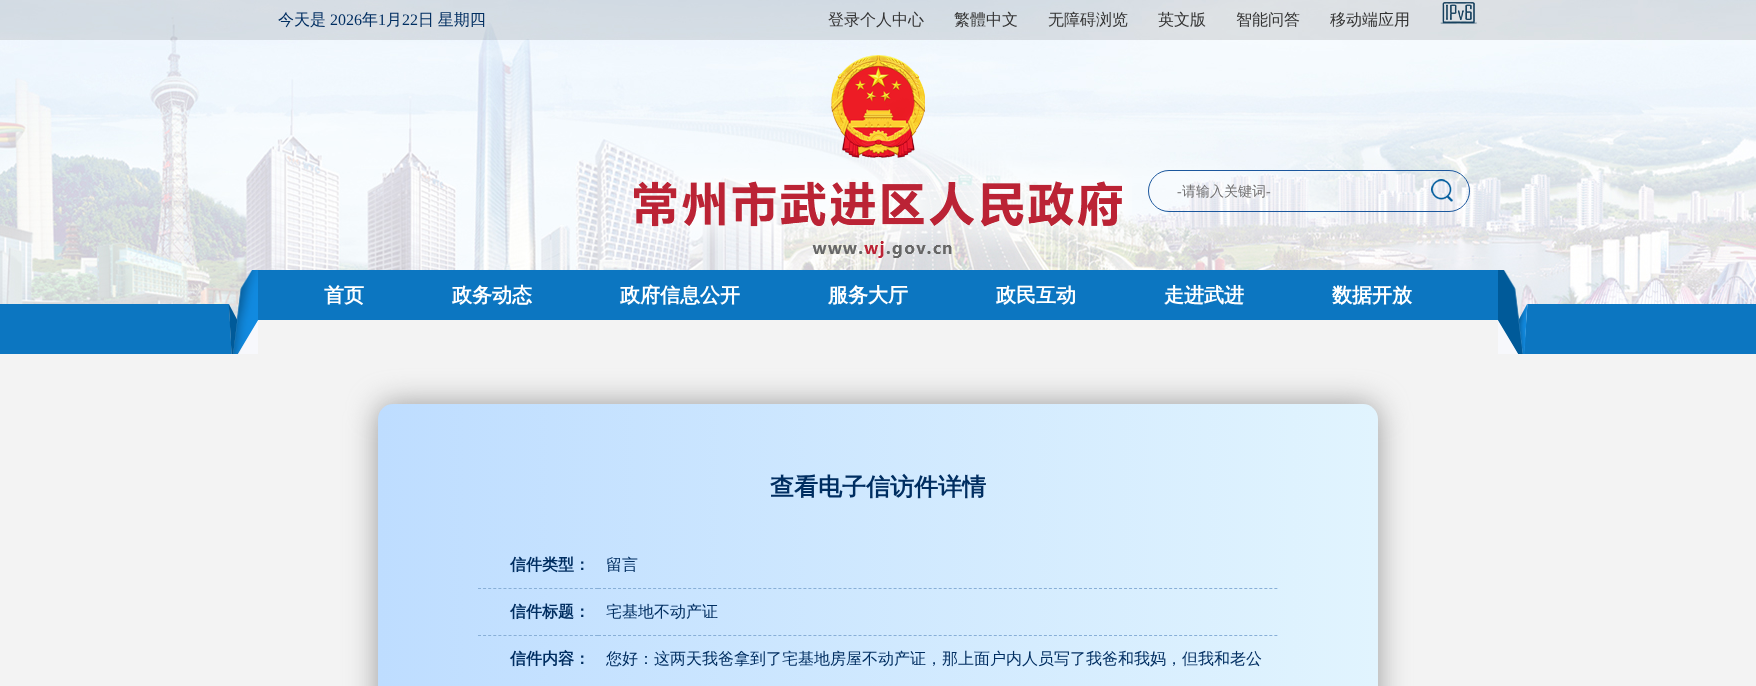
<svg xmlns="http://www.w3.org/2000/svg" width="1756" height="686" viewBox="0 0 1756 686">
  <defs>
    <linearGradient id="g1" gradientUnits="userSpaceOnUse" x1="378" y1="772" x2="1378" y2="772"><stop offset="0" stop-color="#beddff"/><stop offset="1" stop-color="#e1f4fe"/></linearGradient>
  </defs>
  <rect width="100%" height="100%" fill="#f3f3f3"/>
  <image x="0" y="0" width="1756" height="320" href="img/1.png"/>
  <path d="M0 0h1756v40H0z" fill="#0000001a"/>
  <image x="1440" y="2" width="37" height="22" href="img/2.png"/>
  <image x="616" y="55" width="516" height="203" href="img/3.png"/>
  <rect x="1148.5" y="170.5" width="321" height="41" rx="20.5" fill="#ffffff1a" stroke="#1b579d"/>
  <image x="1431" y="179" width="22" height="23" href="img/4.png"/>
  <image x="0" y="270" width="1756" height="84" href="img/5.png"/>
  <rect x="378" y="404" width="1000" height="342" rx="15" fill="#999" filter="blur(15px)"/>
  <rect x="378" y="404" width="1000" height="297" rx="15" fill="url(#g1)"/>
  <path d="M478 588.5H598" fill="none" stroke="#88afd7" stroke-dasharray="3 2.09"/>
  <path d="M598 588.5H1278" fill="none" stroke="#88afd7" stroke-dasharray="3 2.01"/>
  <path d="M478 635.5H598" fill="none" stroke="#88afd7" stroke-dasharray="3 2.09"/>
  <path d="M598 635.5H1278" fill="none" stroke="#88afd7" stroke-dasharray="3 2.01"/>
  <text x="278" y="25" font-family="WenQuanYi Zen Hei" font-size="16" font-weight="500" fill="#002e61">今天是</text>
  <text x="330" y="25" font-family="Liberation Serif" font-size="16" fill="#002e61">2026</text>
  <text x="362" y="25" font-family="WenQuanYi Zen Hei" font-size="16" font-weight="500" fill="#002e61">年</text>
  <text x="378" y="25" font-family="Liberation Serif" font-size="16" fill="#002e61">1</text>
  <text x="386" y="25" font-family="WenQuanYi Zen Hei" font-size="16" font-weight="500" fill="#002e61">月</text>
  <text x="402" y="25" font-family="Liberation Serif" font-size="16" fill="#002e61">22</text>
  <text x="418" y="25" word-spacing="-1" font-family="WenQuanYi Zen Hei" font-size="16" font-weight="500" fill="#002e61">日 星期四</text>
  <g font-family="WenQuanYi Zen Hei" font-size="16" font-weight="500" fill="#333">
    <text x="828" y="25">登录个人中心</text>
    <text x="954" y="25">繁體中文</text>
    <text x="1048" y="25">无障碍浏览</text>
    <text x="1158" y="25">英文版</text>
    <text x="1236" y="25">智能问答</text>
    <text x="1330" y="25">移动端应用</text>
  </g>
  <text x="1177" y="196" font-family="Liberation Serif" font-size="14" fill="#717070">-</text>
  <text x="1182" y="196" font-family="WenQuanYi Zen Hei" font-size="14" font-weight="500" fill="#717070">请输入关键词</text>
  <text x="1266" y="196" font-family="Liberation Serif" font-size="14" fill="#717070">-</text>
  <g font-family="WenQuanYi Zen Hei" font-size="20" font-weight="bold" fill="#fff">
    <text x="324" y="302">首页</text>
    <text x="452" y="302">政务动态</text>
    <text x="620" y="302">政府信息公开</text>
    <text x="828" y="302">服务大厅</text>
    <text x="996" y="302">政民互动</text>
    <text x="1164" y="302">走进武进</text>
    <text x="1332" y="302">数据开放</text>
  </g>
  <text x="770" y="495" font-family="WenQuanYi Zen Hei" font-size="24" font-weight="bold" fill="#002e61">查看电子信访件详情</text>
  <text x="510" y="570" font-family="WenQuanYi Zen Hei" font-size="16" font-weight="bold" fill="#002e61">信件类型：</text>
  <text x="606" y="570" font-family="WenQuanYi Zen Hei" font-size="16" font-weight="500" fill="#002e61">留言</text>
  <text x="510" y="617" font-family="WenQuanYi Zen Hei" font-size="16" font-weight="bold" fill="#002e61">信件标题：</text>
  <text x="606" y="617" font-family="WenQuanYi Zen Hei" font-size="16" font-weight="500" fill="#002e61">宅基地不动产证</text>
  <text x="510" y="664" font-family="WenQuanYi Zen Hei" font-size="16" font-weight="bold" fill="#002e61">信件内容：</text>
  <text x="606" y="664" font-family="WenQuanYi Zen Hei" font-size="16" font-weight="500" fill="#002e61">您好：这两天我爸拿到了宅基地房屋不动产证，那上面户内人员写了我爸和我妈，但我和老公</text>
</svg>
